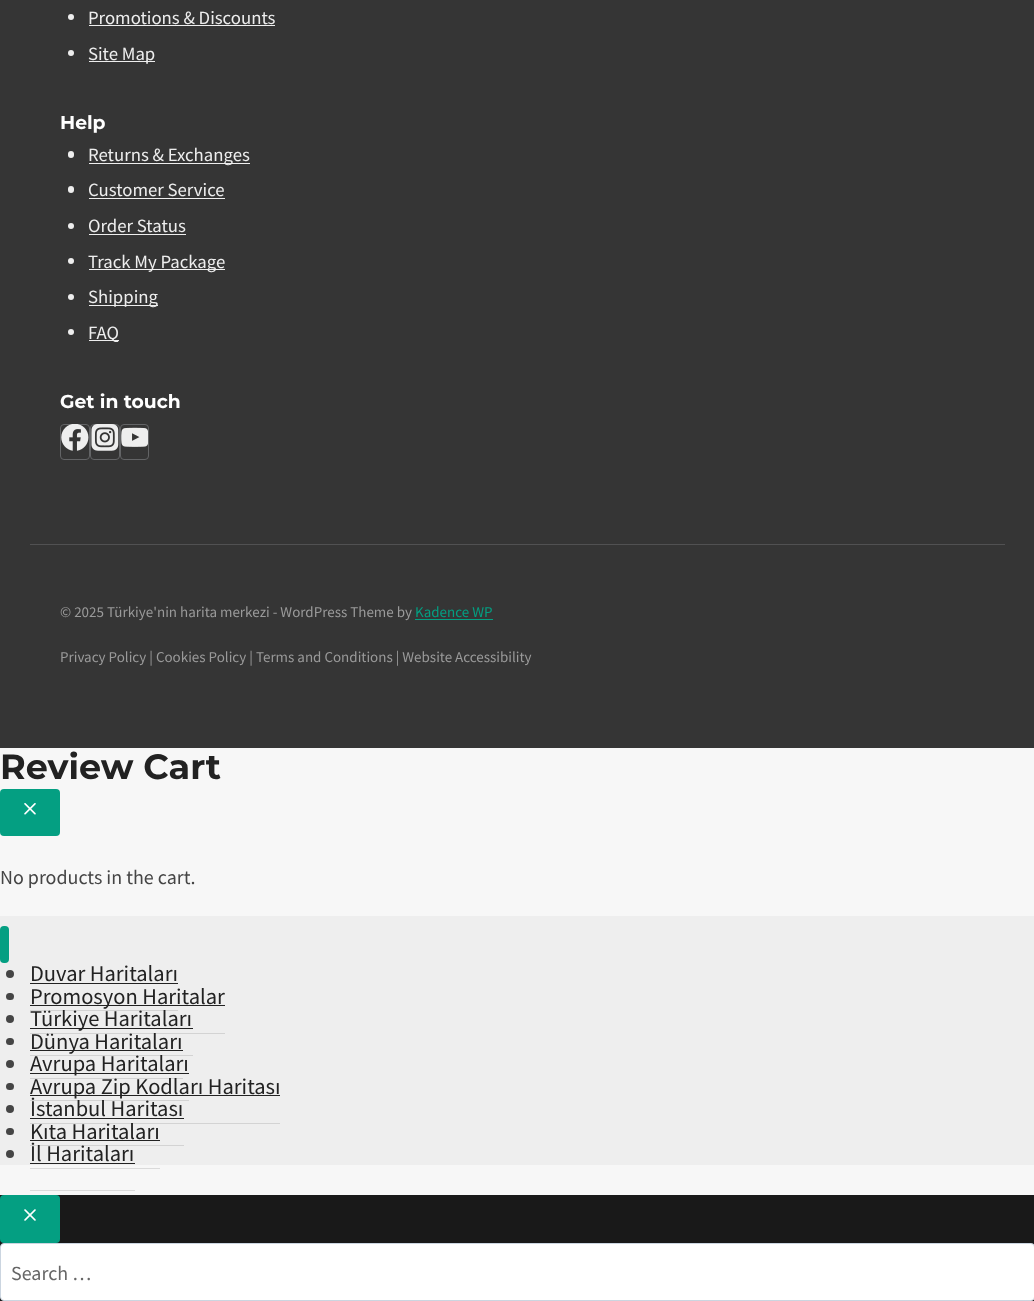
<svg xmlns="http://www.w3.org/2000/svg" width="1034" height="1301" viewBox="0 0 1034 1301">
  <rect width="100%" height="100%" fill="#f7f7f7"/>
  <path d="M0 0h1034v748H0z" fill="#353535"/>
  <circle cx="71" cy="17" r="3" fill="#eee"/>
  <path d="M89 25h186v1H89z" fill="#eee"/>
  <circle cx="71" cy="53" r="3" fill="#eee"/>
  <path d="M89 61h66v1H89z" fill="#eee"/>
  <rect x="68" y="151" width="6" height="7" rx="3" fill="#eee"/>
  <path d="M89 163h161v1H89z" fill="#eee"/>
  <rect x="68" y="186" width="6" height="7" rx="3" fill="#eee"/>
  <path d="M89 198h136v1H89z" fill="#eee"/>
  <circle cx="71" cy="226" r="3" fill="#eee"/>
  <path d="M89 234h97v1H89z" fill="#eee"/>
  <circle cx="71" cy="261" r="3" fill="#eee"/>
  <path d="M89 269h136v1H89z" fill="#eee"/>
  <circle cx="71" cy="297" r="3" fill="#eee"/>
  <path d="M89 305h69v1H89z" fill="#eee"/>
  <circle cx="71" cy="332" r="3" fill="#eee"/>
  <path d="M89 340h30v1H89z" fill="#eee"/>
  <rect x="60.5" y="424.5" width="29" height="35" rx="3.5" fill="none" stroke="#636466"/>
  <image x="61" y="424" width="28" height="27" href="img/1.png"/>
  <rect x="90.5" y="424.5" width="29" height="35" rx="3.5" fill="none" stroke="#636466"/>
  <image x="91" y="424" width="28" height="27" href="img/2.png"/>
  <rect x="120.5" y="424.5" width="28" height="35" rx="3.5" fill="none" stroke="#636466"/>
  <image x="121" y="427" width="27" height="20" href="img/3.png"/>
  <path d="M30 544h975v1H30z" fill="#515152"/>
  <path d="M415 619h78v1H415z" fill="#049f82"/>
  <rect y="789" width="60" height="47" rx="4" fill="#049f82"/>
  <image x="24" y="803" width="12" height="12" href="img/4.png"/>
  <path d="M0 916h1034v249H0z" fill="#eee"/>
  <rect y="926" width="9" height="37" rx="4" fill="#049f82"/>
  <circle cx="10" cy="974" r="4" fill="#454545"/>
  <path d="M30 1010h148v1H30z" fill="#d3d3d3"/>
  <path d="M30 983h148v1H30z" fill="#222"/>
  <rect x="6" y="993" width="8" height="7" rx="3.5" fill="#454545"/>
  <path d="M30 1033h195v1H30z" fill="#d3d3d3"/>
  <path d="M30 1005h195v1H30z" fill="#222"/>
  <circle cx="10" cy="1019" r="4" fill="#454545"/>
  <path d="M30 1055h163v1H30z" fill="#d3d3d3"/>
  <path d="M30 1028h163v1H30z" fill="#222"/>
  <rect x="6" y="1038" width="8" height="7" rx="3.5" fill="#454545"/>
  <path d="M30 1078h153v1H30z" fill="#d3d3d3"/>
  <path d="M30 1050h153v1H30z" fill="#222"/>
  <circle cx="10" cy="1064" r="4" fill="#454545"/>
  <path d="M30 1100h159v1H30z" fill="#d3d3d3"/>
  <path d="M30 1073h159v1H30z" fill="#222"/>
  <rect x="6" y="1083" width="8" height="7" rx="3.5" fill="#454545"/>
  <path d="M30 1123h250v1H30z" fill="#d3d3d3"/>
  <path d="M30 1095h250v1H30z" fill="#222"/>
  <circle cx="10" cy="1109" r="4" fill="#454545"/>
  <path d="M30 1145h154v1H30z" fill="#d3d3d3"/>
  <path d="M30 1118h154v1H30z" fill="#222"/>
  <rect x="6" y="1128" width="8" height="7" rx="3.5" fill="#454545"/>
  <path d="M30 1168h130v1H30z" fill="#dadada"/>
  <path d="M30 1140h130v1H30z" fill="#222"/>
  <circle cx="10" cy="1154" r="4" fill="#454545"/>
  <path d="M30 1190h105v1H30z" fill="#dadada"/>
  <path d="M30 1163h105v1H30z" fill="#222"/>
  <path d="M0 1195h1034v106H0z" fill="#191919"/>
  <rect y="1195" width="60" height="48" rx="4" fill="#049f82"/>
  <image x="24" y="1209" width="12" height="12" href="img/5.png"/>
  <rect x="0.5" y="1243.5" width="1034" height="57" rx="3.5" fill="#fff" stroke="#cbd5e0"/>
  <g font-family="Source Sans Pro" font-size="18.75" fill="#eee">
    <text x="88" y="24">Promotions &amp; Discounts</text>
    <text x="88" y="60">Site Map</text>
  </g>
  <text x="60" y="129" font-family="Montserrat" font-size="18.75" font-weight="bold" fill="#fff">Help</text>
  <g font-family="Source Sans Pro" font-size="18.75" fill="#eee">
    <text x="88" y="161">Returns &amp; Exchanges</text>
    <text x="88" y="196">Customer Service</text>
    <text x="88" y="232">Order Status</text>
    <text x="88" y="268">Track My Package</text>
    <text x="88" y="303">Shipping</text>
    <text x="88" y="339">FAQ</text>
  </g>
  <text x="60" y="408" font-family="Montserrat" font-size="18.75" font-weight="bold" fill="#fff">Get in touch</text>
  <text x="60" y="617" font-family="Source Sans Pro" font-size="15" fill="#9a9a9a">© 2025 Türkiye'nin harita merkezi - WordPress Theme by</text>
  <text x="415" y="617" font-family="Source Sans Pro" font-size="15" fill="#049f82">Kadence WP</text>
  <text x="60" y="662" font-family="Source Sans Pro" font-size="15" fill="#9a9a9a">Privacy Policy | Cookies Policy | Terms and Conditions | Website Accessibility</text>
  <text x="0" y="779" font-family="Montserrat" font-size="35" font-weight="bold" fill="#222">Review Cart</text>
  <text x="0" y="884" font-family="Source Sans Pro" font-size="20" fill="#454545">No products in the cart.</text>
  <g font-family="Source Sans Pro" font-size="22.5" fill="#222">
    <text x="30" y="981">Duvar Haritaları</text>
    <text x="30" y="1004">Promosyon Haritalar</text>
    <text x="30" y="1026">Türkiye Haritaları</text>
    <text x="30" y="1049">Dünya Haritaları</text>
    <text x="30" y="1071">Avrupa Haritaları</text>
    <text x="30" y="1094">Avrupa Zip Kodları Haritası</text>
    <text x="30" y="1116">İstanbul Haritası</text>
    <text x="30" y="1139">Kıta Haritaları</text>
    <text x="30" y="1161">İl Haritaları</text>
  </g>
  <text x="11" y="1280" font-family="Source Sans Pro" font-size="20" fill="#676767">Search …</text>
</svg>
